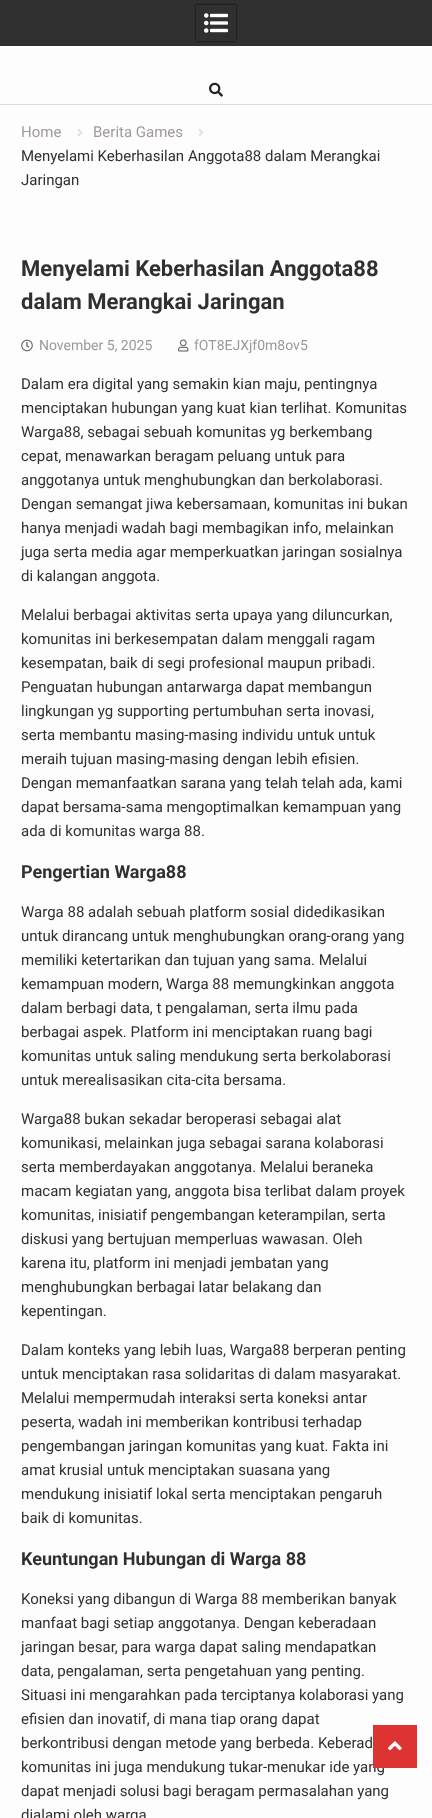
<svg xmlns="http://www.w3.org/2000/svg" width="432" height="1818" viewBox="0 0 432 1818">
  <defs>
    <clipPath id="clip1"><path d="M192 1H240V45H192ZM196 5H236V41H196Z" clip-rule="evenodd"/></clipPath>
  </defs>
  <rect width="100%" height="100%" fill="#fdfdfd"/>
  <path d="M0 0h432v46H0z" fill="#303030"/>
  <g clip-path="url(#clip1)">
    <path d="M196 5h40v36H196z" fill="#000" filter="blur(1px)"/>
  </g>
  <image x="204" y="13" width="24" height="20" href="img/1.png"/>
  <path d="M0 104h432v1H0z" fill="#ddd"/>
  <image x="209" y="82" width="14" height="15" href="img/2.png"/>
  <image x="77" y="128" width="6" height="9" href="img/3.png"/>
  <image x="198" y="128" width="6" height="9" href="img/3.png"/>
  <image x="21" y="339" width="12" height="13" href="img/4.png"/>
  <image x="178" y="339" width="11" height="13" href="img/5.png"/>
  <g font-family="Roboto" font-size="15" fill="#a29a9a">
    <text x="21" y="137">Home</text>
    <text x="93" y="137">Berita Games</text>
  </g>
  <g font-family="Roboto" font-size="15" fill="#303030">
    <text x="21" y="161">Menyelami Keberhasilan Anggota88 dalam Merangkai</text>
    <text x="21" y="185">Jaringan</text>
  </g>
  <g font-family="Roboto" font-size="22" font-weight="bold" fill="#303030">
    <text x="21" y="276">Menyelami Keberhasilan Anggota88</text>
    <text x="21" y="309">dalam Merangkai Jaringan</text>
  </g>
  <g font-family="Roboto" font-size="14" fill="#999">
    <text x="39" y="350">November 5, 2025</text>
    <text x="194" y="350">fOT8EJXjf0m8ov5</text>
  </g>
  <g font-family="Roboto" font-size="15" fill="#303030">
    <text x="21" y="389">Dalam era digital yang semakin kian maju, pentingnya</text>
    <text x="21" y="413">menciptakan hubungan yang kuat kian terlihat. Komunitas</text>
    <text x="21" y="437">Warga88, sebagai sebuah komunitas yg berkembang</text>
    <text x="21" y="461">cepat, menawarkan beragam peluang untuk para</text>
    <text x="21" y="485">anggotanya untuk menghubungkan dan berkolaborasi.</text>
    <text x="21" y="509">Dengan semangat jiwa kebersamaan, komunitas ini bukan</text>
    <text x="21" y="533">hanya menjadi wadah bagi membagikan info, melainkan</text>
    <text x="21" y="557">juga serta media agar memperkuatkan jaringan sosialnya</text>
    <text x="21" y="581">di kalangan anggota.</text>
    <text x="21" y="620">Melalui berbagai aktivitas serta upaya yang diluncurkan,</text>
    <text x="21" y="644">komunitas ini berkesempatan dalam menggali ragam</text>
    <text x="21" y="668">kesempatan, baik di segi profesional maupun pribadi.</text>
    <text x="21" y="692">Penguatan hubungan antarwarga dapat membangun</text>
    <text x="21" y="716">lingkungan yg supporting pertumbuhan serta inovasi,</text>
    <text x="21" y="740">serta membantu masing-masing individu untuk untuk</text>
    <text x="21" y="764">meraih tujuan masing-masing dengan lebih efisien.</text>
    <text x="21" y="788">Dengan memanfaatkan sarana yang telah telah ada, kami</text>
    <text x="21" y="812">dapat bersama-sama mengoptimalkan kemampuan yang</text>
    <text x="21" y="836">ada di komunitas warga 88.</text>
  </g>
  <text x="21" y="878" font-family="Roboto" font-size="18" font-weight="bold" fill="#303030">Pengertian Warga88</text>
  <g font-family="Roboto" font-size="15" fill="#303030">
    <text x="21" y="917">Warga 88 adalah sebuah platform sosial didedikasikan</text>
    <text x="21" y="941">untuk dirancang untuk menghubungkan orang-orang yang</text>
    <text x="21" y="965">memiliki ketertarikan dan tujuan yang sama. Melalui</text>
    <text x="21" y="989">kemampuan modern, Warga 88 memungkinkan anggota</text>
    <text x="21" y="1013">dalam berbagi data, t pengalaman, serta ilmu pada</text>
    <text x="21" y="1037">berbagai aspek. Platform ini menciptakan ruang bagi</text>
    <text x="21" y="1061">komunitas untuk saling mendukung serta berkolaborasi</text>
    <text x="21" y="1085">untuk merealisasikan cita-cita bersama.</text>
    <text x="21" y="1124">Warga88 bukan sekadar beroperasi sebagai alat</text>
    <text x="21" y="1148">komunikasi, melainkan juga sebagai sarana kolaborasi</text>
    <text x="21" y="1172">serta memberdayakan anggotanya. Melalui beraneka</text>
    <text x="21" y="1196">macam kegiatan yang, anggota bisa terlibat dalam proyek</text>
    <text x="21" y="1220">komunitas, inisiatif pengembangan keterampilan, serta</text>
    <text x="21" y="1244">diskusi yang bertujuan memperluas wawasan. Oleh</text>
    <text x="21" y="1268">karena itu, platform ini menjadi jembatan yang</text>
    <text x="21" y="1292">menghubungkan berbagai latar belakang dan</text>
    <text x="21" y="1316">kepentingan.</text>
    <text x="21" y="1355">Dalam konteks yang lebih luas, Warga88 berperan penting</text>
    <text x="21" y="1379">untuk menciptakan rasa solidaritas di dalam masyarakat.</text>
    <text x="21" y="1403">Melalui mempermudah interaksi serta koneksi antar</text>
    <text x="21" y="1427">peserta, wadah ini memberikan kontribusi terhadap</text>
    <text x="21" y="1451">pengembangan jaringan komunitas yang kuat. Fakta ini</text>
    <text x="21" y="1475">amat krusial untuk menciptakan suasana yang</text>
    <text x="21" y="1499">mendukung inisiatif lokal serta menciptakan pengaruh</text>
    <text x="21" y="1523">baik di komunitas.</text>
  </g>
  <text x="21" y="1565" font-family="Roboto" font-size="18" font-weight="bold" fill="#303030">Keuntungan Hubungan di Warga 88</text>
  <g font-family="Roboto" font-size="15" fill="#303030">
    <text x="21" y="1604">Koneksi yang dibangun di Warga 88 memberikan banyak</text>
    <text x="21" y="1628">manfaat bagi setiap anggotanya. Dengan keberadaan</text>
    <text x="21" y="1652">jaringan besar, para warga dapat saling mendapatkan</text>
    <text x="21" y="1676">data, pengalaman, serta pengetahuan yang penting.</text>
    <text x="21" y="1700">Situasi ini mengarahkan pada terciptanya kolaborasi yang</text>
    <text x="21" y="1724">efisien dan inovatif, di mana tiap orang dapat</text>
    <text x="21" y="1748">berkontribusi dengan metode yang berbeda. Keberad</text>
    <text x="21" y="1772">komunitas ini juga mendukung tukar-menukar ide yang</text>
    <text x="21" y="1796">dapat menjadi solusi bagi beragam permasalahan yang</text>
    <text x="21" y="1820">dialami oleh warga</text>
  </g>
  <path d="M373 1725h44v43H373z" fill="#d33"/>
  <image x="388" y="1741" width="14" height="10" href="img/6.png"/>
</svg>
